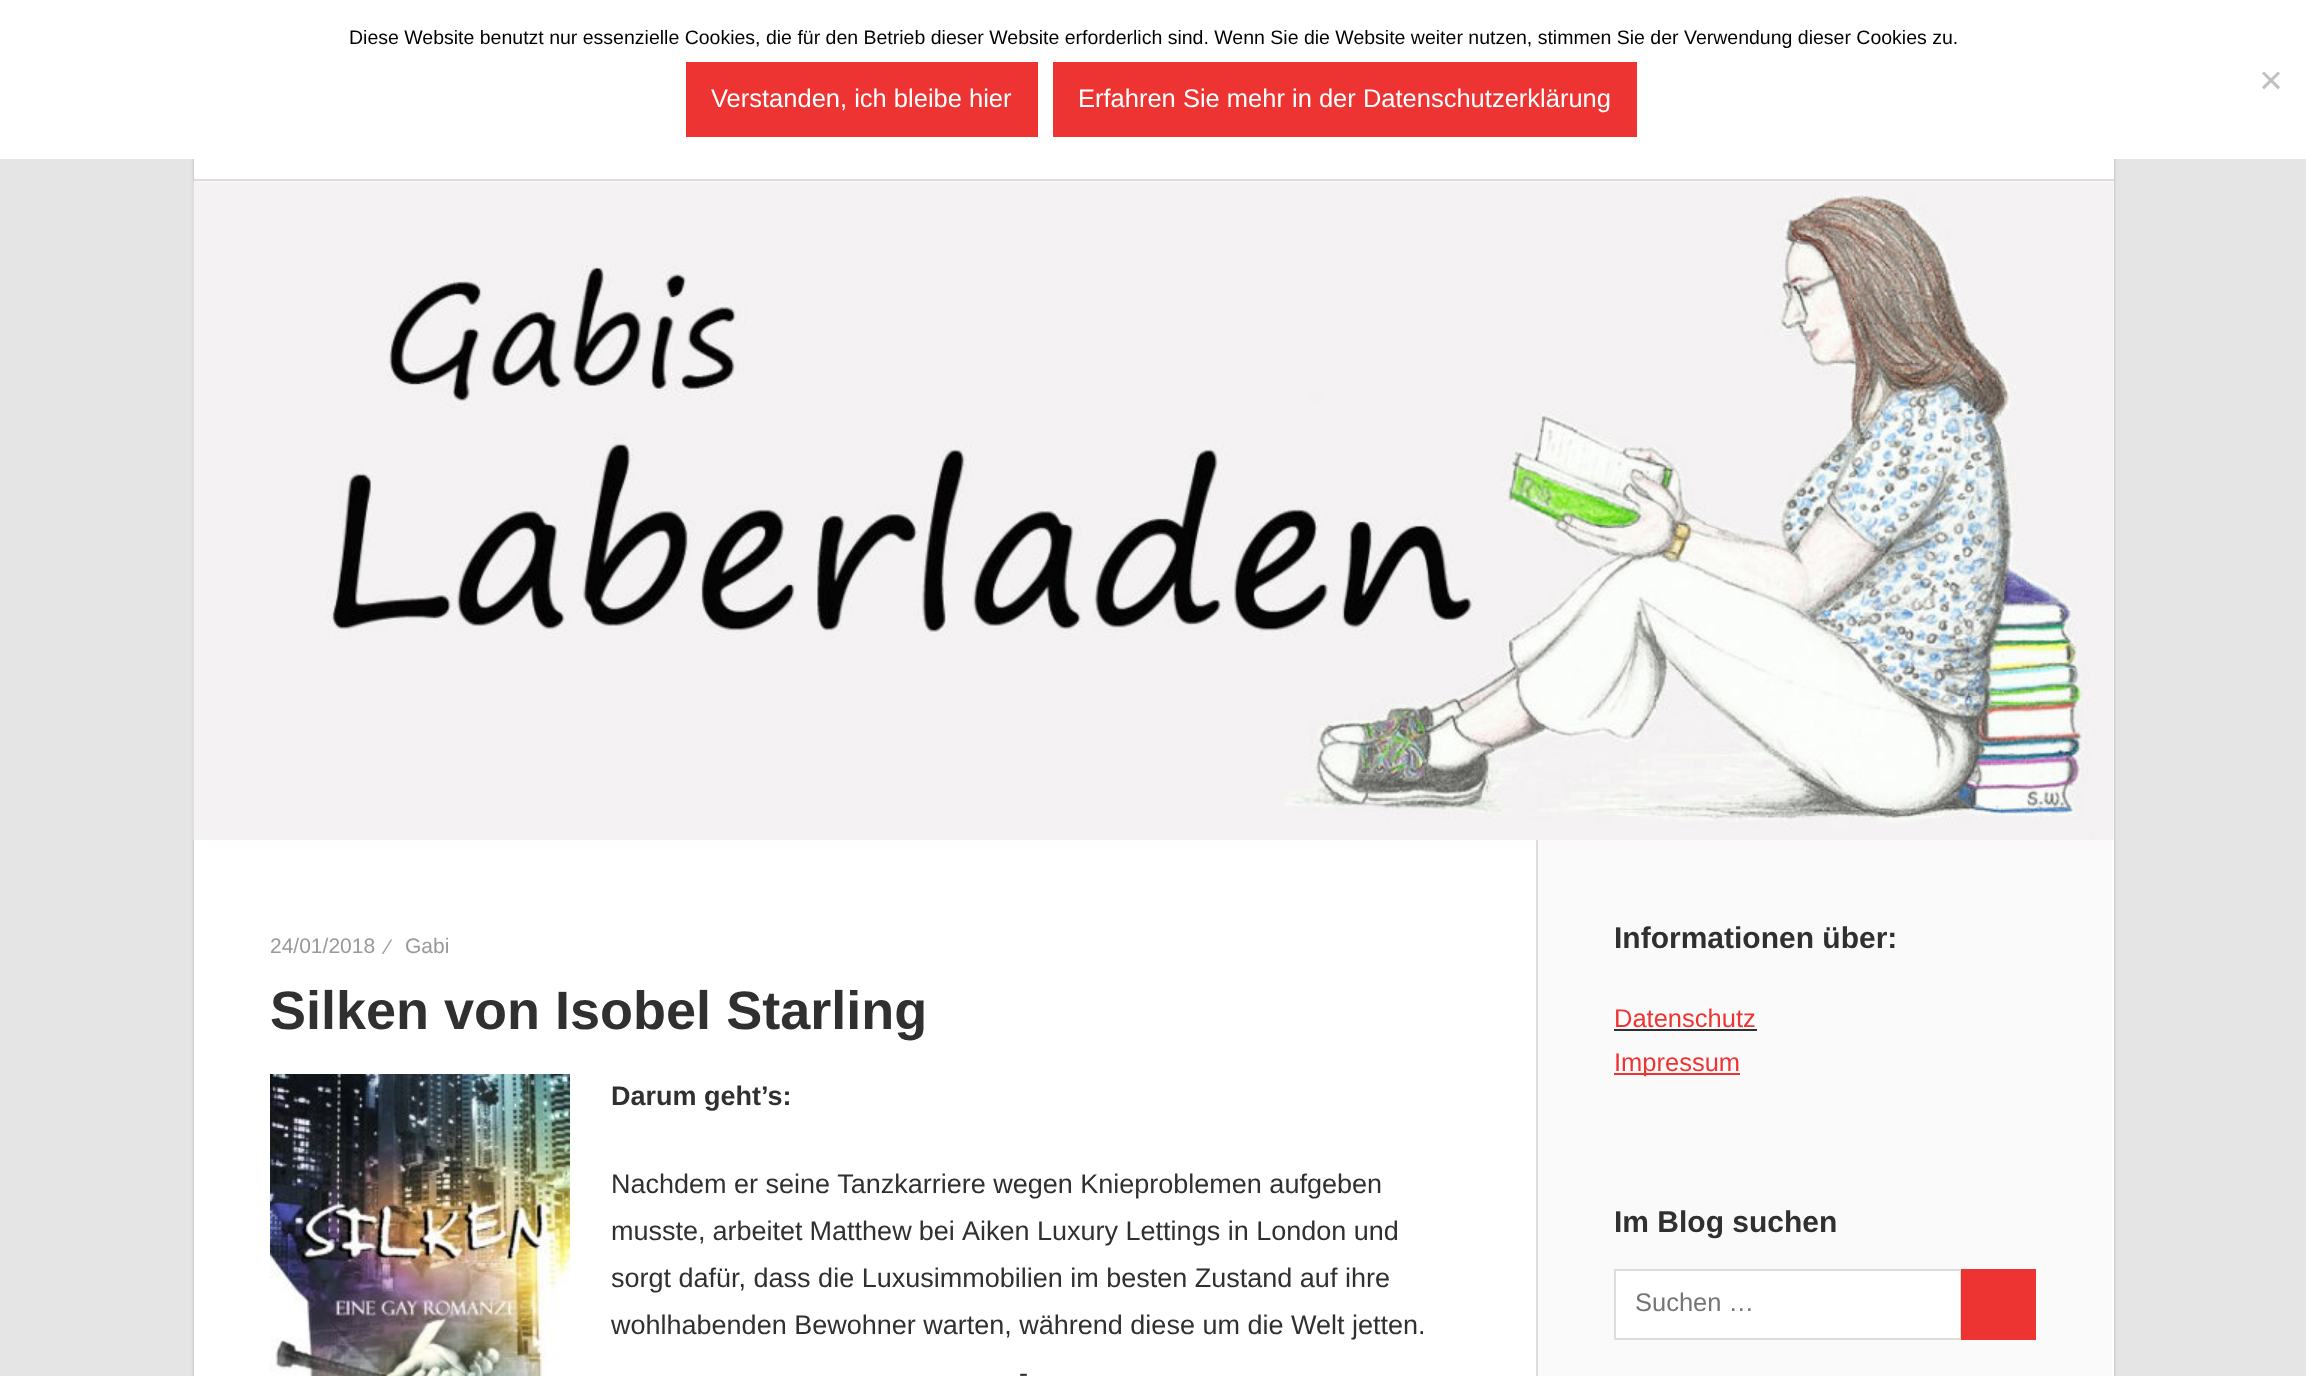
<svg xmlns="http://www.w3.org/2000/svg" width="2306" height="1376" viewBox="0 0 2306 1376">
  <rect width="100%" height="100%" fill="#e5e5e5"/>
  <path d="M194 51h1920v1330H194z" fill="#aaa" filter="blur(1.5px)"/>
  <path d="M0 0h2306v159H0z" fill="#fff"/>
  <path d="M2278 71.5L2280 73.5L2264 89.5L2262 87Z" fill="#c0c0c0"/>
  <path d="M2262 73.5L2264 71.5L2280 87L2278 89.5Z" fill="#c0c0c0"/>
  <path d="M686 62h352v75H686z" fill="#e33"/>
  <path d="M1053 62h584v75H1053z" fill="#e33"/>
  <path d="M194 159h1920v1217H194z" fill="#fff"/>
  <path d="M194 179h1920v2H194z" fill="#ddd"/>
  <image x="193" y="181" width="1921" height="659" href="img/1.png"/>
  <image x="270" y="1074" width="300" height="302" href="img/2.png"/>
  <path d="M1538 840h574v536H1538z" fill="#fafafa"/>
  <path d="M1536 840h2v536H1536z" fill="#ddd"/>
  <path d="M1614 1029h143v2H1614z" fill="#303030"/>
  <path d="M1614 1073h126v2H1614z" fill="#e33"/>
  <path d="M1615 1270h346v69H1615z" fill="#fff" stroke="#ddd" stroke-width="2"/>
  <path d="M1961 1269h75v71H1961z" fill="#e33"/>
  <text x="349" y="44" font-family="Liberation Sans" font-size="19.5" fill="#000">Diese Website benutzt nur essenzielle Cookies, die für den Betrieb dieser Website erforderlich sind. Wenn Sie die Website weiter nutzen, stimmen Sie der Verwendung dieser Cookies zu.</text>
  <g font-family="Liberation Sans" font-size="25.5" fill="#fff">
    <text x="711" y="107">Verstanden, ich bleibe hier</text>
    <text x="1078" y="107">Erfahren Sie mehr in der Datenschutzerklärung</text>
  </g>
  <g font-family="Liberation Sans" font-size="21" fill="#999">
    <text x="270" y="953">24/01/2018</text>
    <text x="386" y="954">⁄</text>
    <text x="405" y="953">Gabi</text>
  </g>
  <text x="270" y="1029" font-family="Liberation Sans" font-size="54" font-weight="bold" fill="#303030">Silken von Isobel Starling</text>
  <text x="611" y="1105" font-family="Liberation Sans" font-size="27" font-weight="bold" fill="#303030">Darum geht’s:</text>
  <g font-family="Liberation Sans" font-size="27" fill="#303030">
    <text x="611" y="1193">Nachdem er seine Tanzkarriere wegen Knieproblemen aufgeben</text>
    <text x="611" y="1240" word-spacing="-0.5">musste, arbeitet Matthew bei</text>
    <text x="962" y="1240">Aiken Luxury Lettings in London und</text>
    <text x="611" y="1287">sorgt dafür, dass die Luxusimmobilien im besten Zustand auf ihre</text>
    <text x="611" y="1334">wohlhabenden Bewohner warten, während diese um die Welt jetten.</text>
    <text x="1019" y="1382">-</text>
  </g>
  <text x="1614" y="948" font-family="Liberation Sans" font-size="30" font-weight="bold" fill="#303030">Informationen über:</text>
  <g font-family="Liberation Sans" font-size="25.5" fill="#e33">
    <text x="1614" y="1027">Datenschutz</text>
    <text x="1614" y="1071">Impressum</text>
  </g>
  <text x="1614" y="1232" font-family="Liberation Sans" font-size="30" font-weight="bold" fill="#303030">Im Blog suchen</text>
  <text x="1635" y="1311" font-family="Liberation Sans" font-size="25.5" fill="#757575">Suchen …</text>
</svg>
